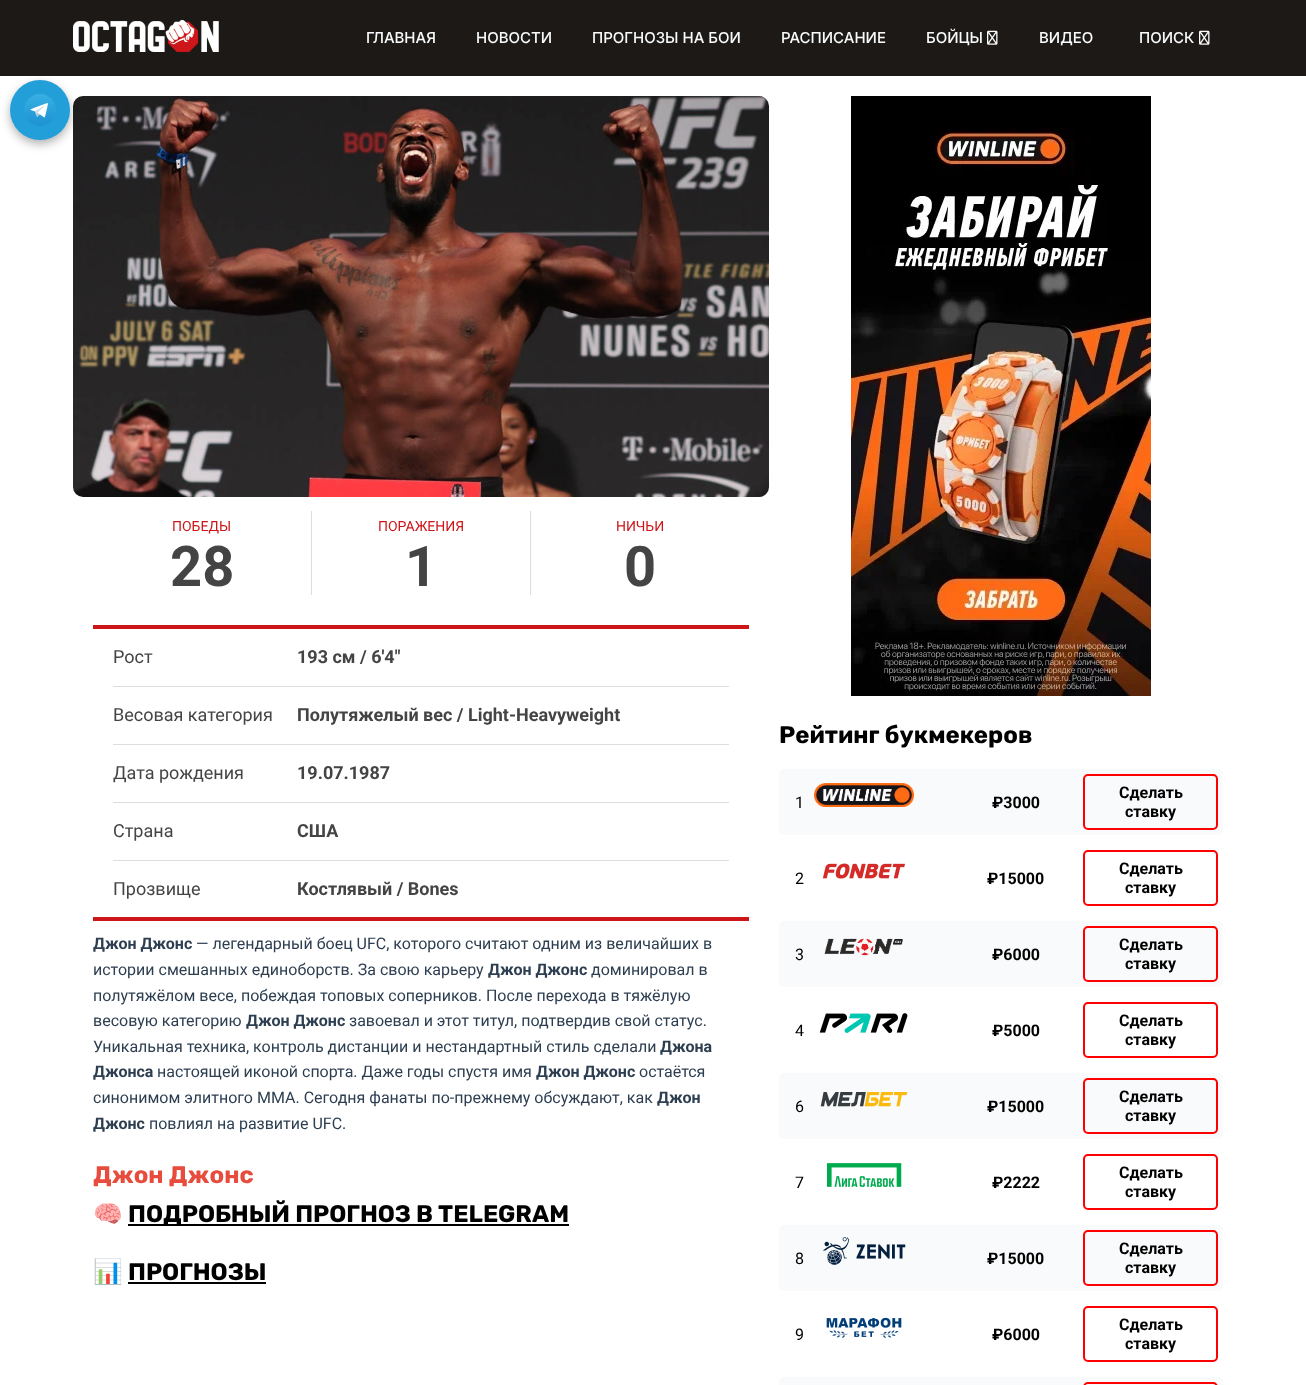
<svg xmlns="http://www.w3.org/2000/svg" width="1306" height="1385" viewBox="0 0 1306 1385">
  <rect width="100%" height="100%" fill="#fff"/>
  <path d="M0 0h1306v76H0z" fill="#1c1917"/>
  <image x="73" y="20" width="146" height="32" href="img/1.png"/>
  <image x="987" y="30" width="11" height="15" href="img/2.png"/>
  <image x="1199" y="30" width="11" height="15" href="img/2.png"/>
  <image x="73" y="96" width="696" height="401" href="img/4.png"/>
  <rect x="10" y="84" width="60" height="60" rx="30" fill="#0000004d" filter="blur(5px)"/>
  <circle cx="40" cy="110" r="30" fill="#229ed9"/>
  <image x="24" y="94" width="32" height="32" href="img/3.png"/>
  <path d="M311 511h1v84H311z" fill="#ddd"/>
  <path d="M530 511h1v84H530z" fill="#ddd"/>
  <path d="M93 625h656v4H93z" fill="#cd1619"/>
  <path d="M93 917h656v4H93z" fill="#cd1619"/>
  <path d="M113 686h616v1H113z" fill="#ddd"/>
  <path d="M113 744h616v1H113z" fill="#ddd"/>
  <path d="M113 802h616v1H113z" fill="#ddd"/>
  <path d="M113 860h616v1H113z" fill="#ddd"/>
  <path d="M128 1224h441v2H128z" fill="#000"/>
  <path d="M128 1282h138v2H128z" fill="#000"/>
  <image x="851" y="96" width="300" height="600" href="img/5.png"/>
  <rect x="779" y="769" width="444" height="66" rx="5" fill="#f9fafb"/>
  <image x="814" y="783" width="100" height="24" href="img/6.png"/>
  <rect x="1084" y="775" width="133" height="54" rx="4" fill="none" stroke="#f00" stroke-width="2"/>
  <image x="823" y="863" width="82" height="16" href="img/7.png"/>
  <rect x="1084" y="851" width="133" height="54" rx="4" fill="none" stroke="#f00" stroke-width="2"/>
  <rect x="779" y="921" width="444" height="66" rx="5" fill="#f9fafb"/>
  <image x="824" y="938" width="80" height="18" href="img/8.png"/>
  <rect x="1084" y="927" width="133" height="54" rx="4" fill="none" stroke="#f00" stroke-width="2"/>
  <image x="819" y="1013" width="89" height="20" href="img/9.png"/>
  <rect x="1084" y="1003" width="133" height="54" rx="4" fill="none" stroke="#f00" stroke-width="2"/>
  <rect x="779" y="1073" width="444" height="66" rx="5" fill="#f9fafb"/>
  <image x="820" y="1092" width="88" height="15" href="img/10.png"/>
  <rect x="1084" y="1079" width="133" height="54" rx="4" fill="none" stroke="#f00" stroke-width="2"/>
  <image x="827" y="1163" width="75" height="24" href="img/11.png"/>
  <rect x="1084" y="1155" width="133" height="54" rx="4" fill="none" stroke="#f00" stroke-width="2"/>
  <rect x="779" y="1225" width="444" height="66" rx="5" fill="#f9fafb"/>
  <image x="823" y="1237" width="83" height="28" href="img/12.png"/>
  <rect x="1084" y="1231" width="133" height="54" rx="4" fill="none" stroke="#f00" stroke-width="2"/>
  <image x="826" y="1317" width="76" height="21" href="img/13.png"/>
  <rect x="1084" y="1307" width="133" height="54" rx="4" fill="none" stroke="#f00" stroke-width="2"/>
  <rect x="779" y="1377" width="444" height="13" rx="5" fill="#f9fafb"/>
  <rect x="1084" y="1383" width="133" height="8" rx="4" fill="none" stroke="#f00" stroke-width="2"/>
  <g font-family="Inter" font-size="15" font-weight="500" fill="#f9fafb">
    <text x="366" y="43">ГЛАВНАЯ</text>
    <text x="476" y="43">НОВОСТИ</text>
    <text x="592" y="43">ПРОГНОЗЫ НА БОИ</text>
    <text x="781" y="43">РАСПИСАНИЕ</text>
    <text x="926" y="43">БОЙЦЫ</text>
    <text x="1039" y="43">ВИДЕО</text>
    <text x="1139" y="43">ПОИСК</text>
  </g>
  <text x="172" y="531" font-family="Roboto" font-size="14" fill="#cd1619">ПОБЕДЫ</text>
  <text x="170" y="586" font-family="Roboto" font-size="56" font-weight="bold" fill="#444">28</text>
  <text x="378" y="531" font-family="Roboto" font-size="14" fill="#cd1619">ПОРАЖЕНИЯ</text>
  <text x="405" y="586" font-family="Roboto" font-size="56" font-weight="bold" fill="#444">1</text>
  <text x="616" y="531" font-family="Roboto" font-size="14" fill="#cd1619">НИЧЬИ</text>
  <text x="624" y="586" font-family="Roboto" font-size="56" font-weight="bold" fill="#444">0</text>
  <text x="113" y="663" font-family="Roboto" font-size="18" fill="#444">Рост</text>
  <text x="297" y="663" font-family="Roboto" font-size="18" font-weight="bold" fill="#444">193 см / 6'4"</text>
  <text x="113" y="721" font-family="Roboto" font-size="18" fill="#444">Весовая категория</text>
  <text x="297" y="721" font-family="Roboto" font-size="18" font-weight="bold" fill="#444">Полутяжелый вес / Light-Heavyweight</text>
  <text x="113" y="779" font-family="Roboto" font-size="18" fill="#444">Дата рождения</text>
  <text x="297" y="779" font-family="Roboto" font-size="18" font-weight="bold" fill="#444">19.07.1987</text>
  <text x="113" y="837" font-family="Roboto" font-size="18" fill="#444">Страна</text>
  <text x="297" y="837" font-family="Roboto" font-size="18" font-weight="bold" fill="#444">США</text>
  <text x="113" y="895" font-family="Roboto" font-size="18" fill="#444">Прозвище</text>
  <text x="297" y="895" font-family="Roboto" font-size="18" font-weight="bold" fill="#444">Костлявый / Bones</text>
  <text x="93" y="949" font-family="Roboto" font-size="16" font-weight="bold" fill="#2c3e50">Джон Джонс</text>
  <g font-family="Roboto" font-size="16" fill="#2c3e50">
    <text x="196" y="949">— легендарный боец UFC, которого считают одним из величайших в</text>
    <text x="93" y="975">истории смешанных единоборств. За свою карьеру</text>
  </g>
  <text x="488" y="975" font-family="Roboto" font-size="16" font-weight="bold" fill="#2c3e50">Джон Джонс</text>
  <g font-family="Roboto" font-size="16" fill="#2c3e50">
    <text x="591" y="975">доминировал в</text>
    <text x="93" y="1001">полутяжёлом весе, побеждая топовых соперников. После перехода в тяжёлую</text>
    <text x="93" y="1026">весовую категорию</text>
  </g>
  <text x="246" y="1026" font-family="Roboto" font-size="16" font-weight="bold" fill="#2c3e50">Джон Джонс</text>
  <g font-family="Roboto" font-size="16" fill="#2c3e50">
    <text x="349" y="1026">завоевал и этот титул, подтвердив свой статус.</text>
    <text x="93" y="1052">Уникальная техника, контроль дистанции и нестандартный стиль сделали</text>
  </g>
  <g font-family="Roboto" font-size="16" font-weight="bold" fill="#2c3e50">
    <text x="660" y="1052">Джона</text>
    <text x="93" y="1077">Джонса</text>
  </g>
  <text x="157" y="1077" font-family="Roboto" font-size="16" fill="#2c3e50">настоящей иконой спорта. Даже годы спустя имя</text>
  <text x="536" y="1077" font-family="Roboto" font-size="16" font-weight="bold" fill="#2c3e50">Джон Джонс</text>
  <g font-family="Roboto" font-size="16" fill="#2c3e50">
    <text x="639" y="1077">остаётся</text>
    <text x="93" y="1103">синонимом элитного ММА. Сегодня фанаты по-прежнему обсуждают, как</text>
  </g>
  <g font-family="Roboto" font-size="16" font-weight="bold" fill="#2c3e50">
    <text x="657" y="1103">Джон</text>
    <text x="93" y="1129">Джонс</text>
  </g>
  <text x="149" y="1129" font-family="Roboto" font-size="16" fill="#2c3e50">повлиял на развитие UFC.</text>
  <text x="93" y="1183" font-family="Rubik" font-size="24" font-weight="bold" fill="#e74c3c">Джон Джонс</text>
  <text x="93" y="1222" font-family="Noto Color Emoji" font-size="24" font-weight="bold" fill="#e74c3c">🧠</text>
  <text x="128" y="1222" font-family="Rubik" font-size="24" font-weight="bold" fill="#000">ПОДРОБНЫЙ ПРОГНОЗ В TELEGRAM</text>
  <text x="93" y="1280" font-family="Noto Color Emoji" font-size="24" font-weight="bold" fill="#e74c3c">📊</text>
  <g font-family="Rubik" font-size="24" font-weight="bold" fill="#000">
    <text x="128" y="1280">ПРОГНОЗЫ</text>
    <text x="779" y="743">Рейтинг букмекеров</text>
  </g>
  <text x="795" y="808" font-family="Roboto" font-size="16" fill="#000">1</text>
  <g font-family="Roboto" font-size="16" font-weight="bold" fill="#000">
    <text x="992" y="808">₽3000</text>
    <text x="1119" y="798">Сделать</text>
    <text x="1125" y="817">ставку</text>
  </g>
  <text x="795" y="884" font-family="Roboto" font-size="16" fill="#000">2</text>
  <g font-family="Roboto" font-size="16" font-weight="bold" fill="#000">
    <text x="987" y="884">₽15000</text>
    <text x="1119" y="874">Сделать</text>
    <text x="1125" y="893">ставку</text>
  </g>
  <text x="795" y="960" font-family="Roboto" font-size="16" fill="#000">3</text>
  <g font-family="Roboto" font-size="16" font-weight="bold" fill="#000">
    <text x="992" y="960">₽6000</text>
    <text x="1119" y="950">Сделать</text>
    <text x="1125" y="969">ставку</text>
  </g>
  <text x="795" y="1036" font-family="Roboto" font-size="16" fill="#000">4</text>
  <g font-family="Roboto" font-size="16" font-weight="bold" fill="#000">
    <text x="992" y="1036">₽5000</text>
    <text x="1119" y="1026">Сделать</text>
    <text x="1125" y="1045">ставку</text>
  </g>
  <text x="795" y="1112" font-family="Roboto" font-size="16" fill="#000">6</text>
  <g font-family="Roboto" font-size="16" font-weight="bold" fill="#000">
    <text x="987" y="1112">₽15000</text>
    <text x="1119" y="1102">Сделать</text>
    <text x="1125" y="1121">ставку</text>
  </g>
  <text x="795" y="1188" font-family="Roboto" font-size="16" fill="#000">7</text>
  <g font-family="Roboto" font-size="16" font-weight="bold" fill="#000">
    <text x="992" y="1188">₽2222</text>
    <text x="1119" y="1178">Сделать</text>
    <text x="1125" y="1197">ставку</text>
  </g>
  <text x="795" y="1264" font-family="Roboto" font-size="16" fill="#000">8</text>
  <g font-family="Roboto" font-size="16" font-weight="bold" fill="#000">
    <text x="987" y="1264">₽15000</text>
    <text x="1119" y="1254">Сделать</text>
    <text x="1125" y="1273">ставку</text>
  </g>
  <text x="795" y="1340" font-family="Roboto" font-size="16" fill="#000">9</text>
  <g font-family="Roboto" font-size="16" font-weight="bold" fill="#000">
    <text x="992" y="1340">₽6000</text>
    <text x="1119" y="1330">Сделать</text>
    <text x="1125" y="1349">ставку</text>
  </g>
</svg>
